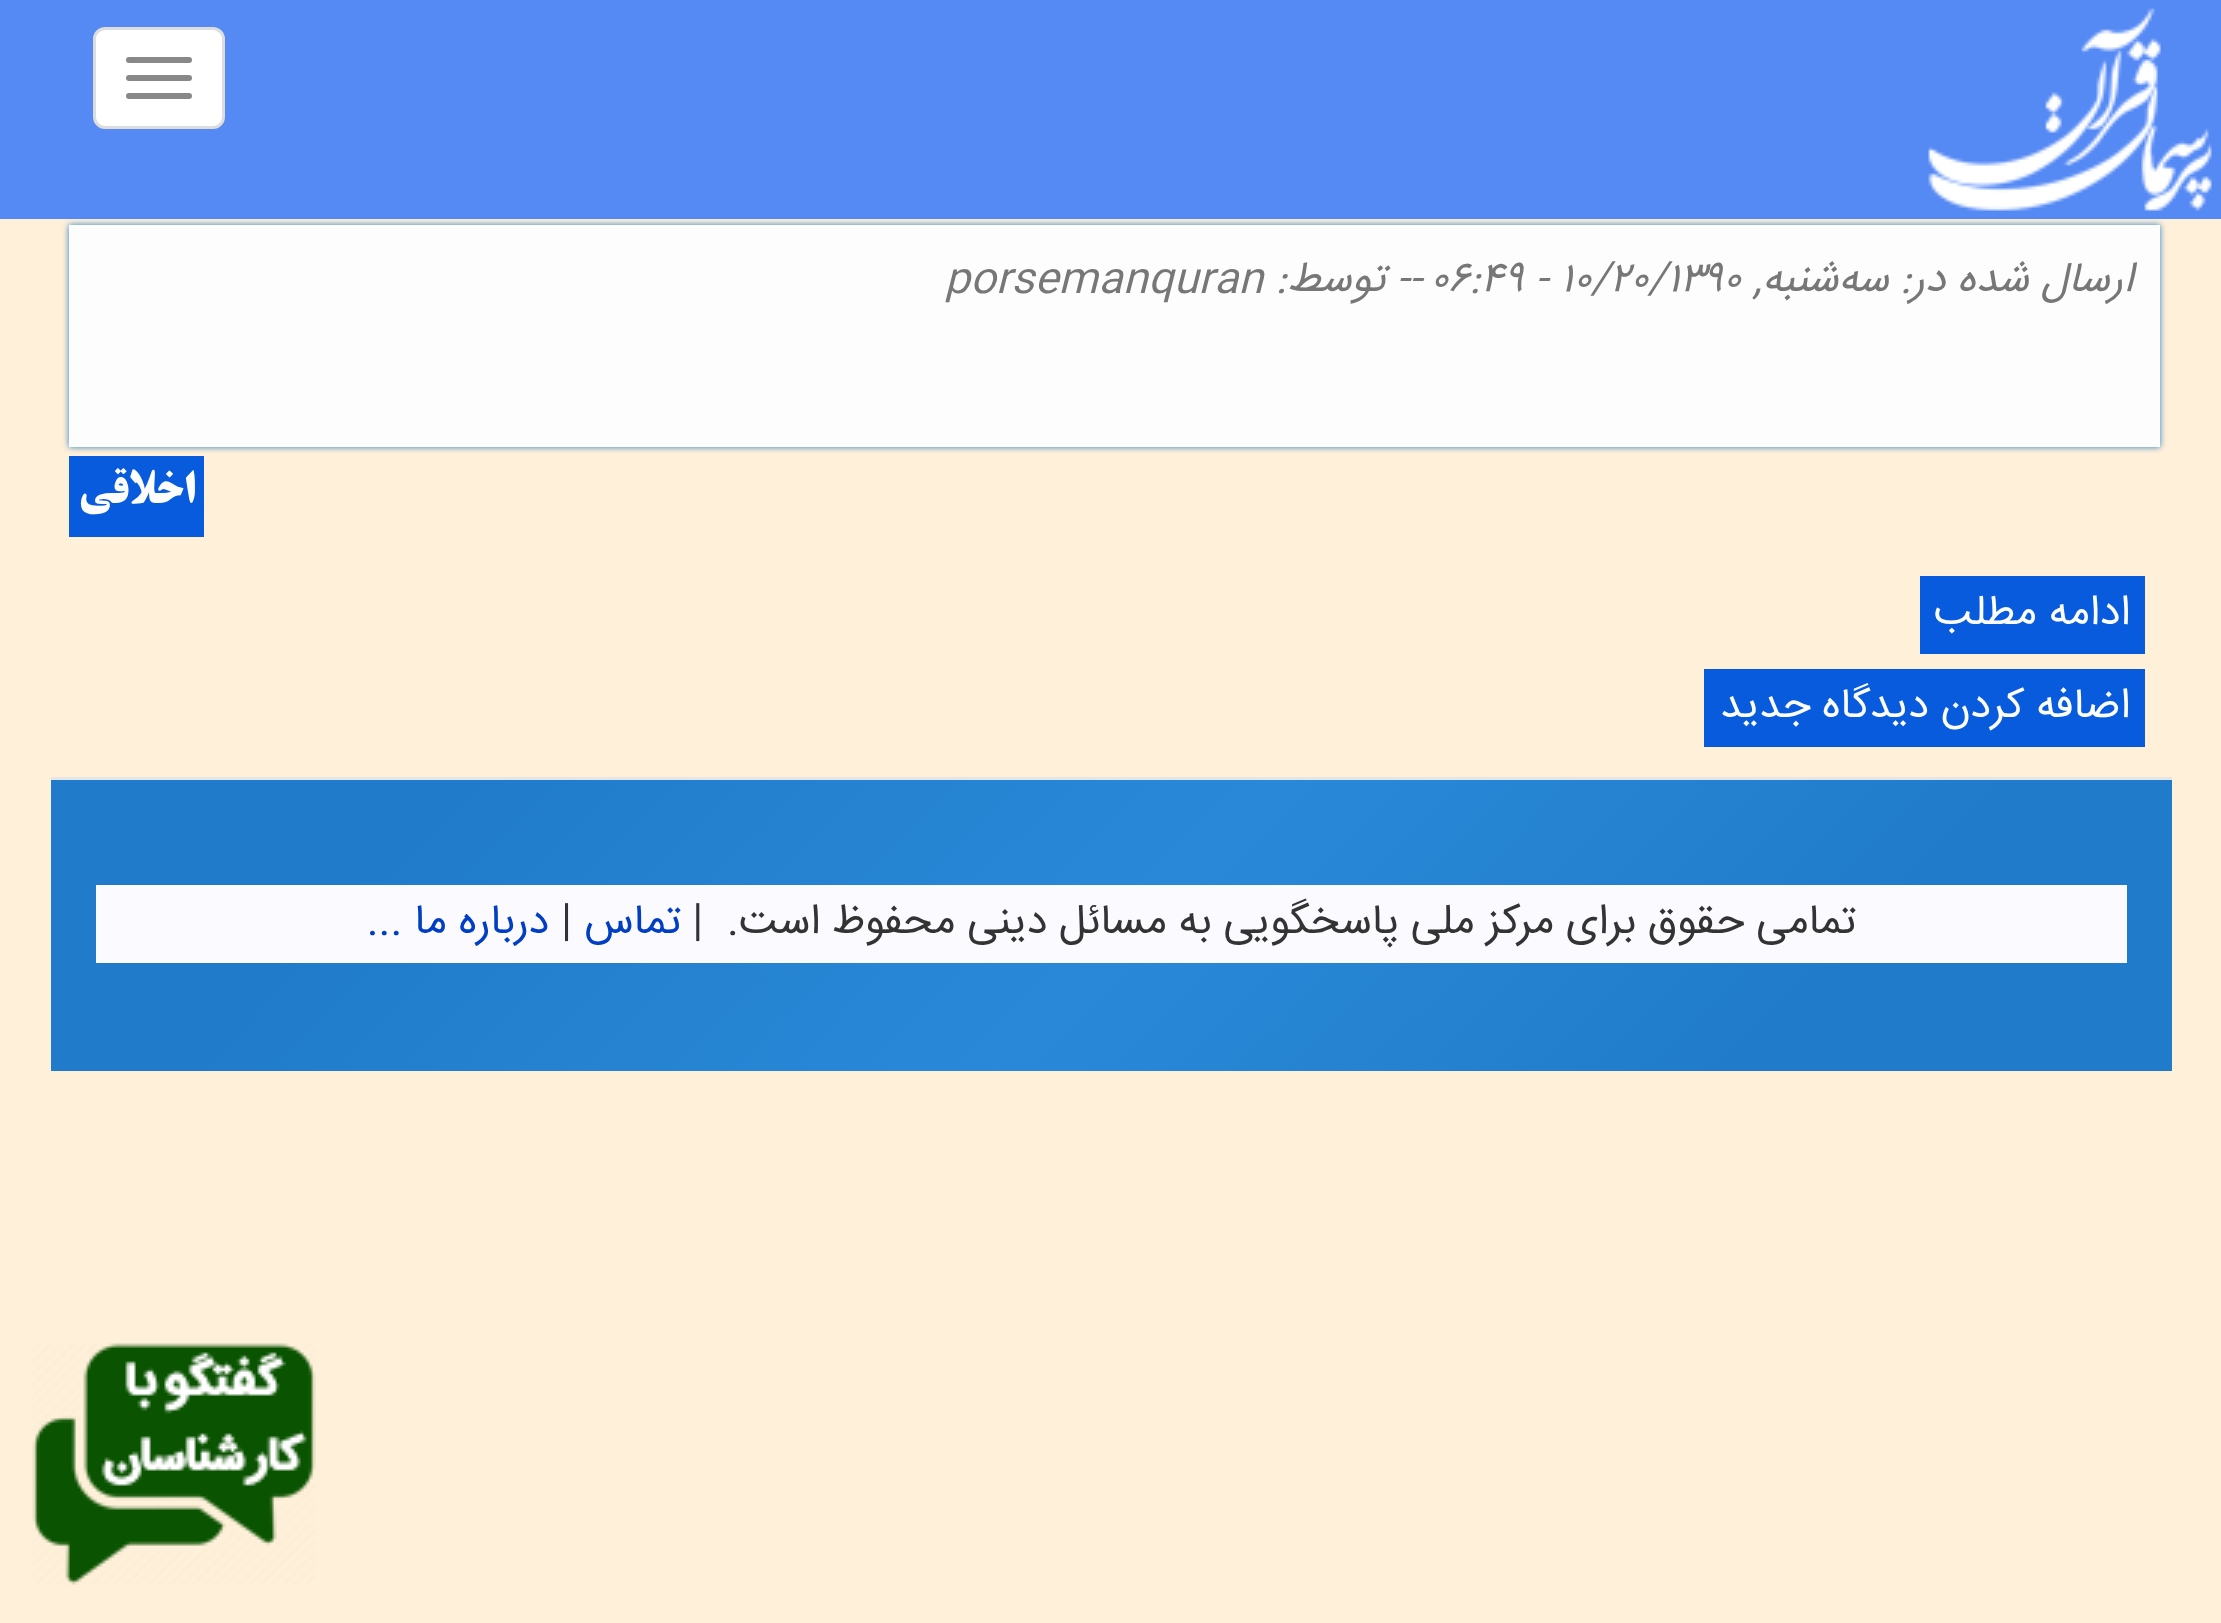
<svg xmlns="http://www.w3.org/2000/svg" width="2221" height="1623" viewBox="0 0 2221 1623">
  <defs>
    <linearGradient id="g1" gradientUnits="userSpaceOnUse" x1="508" y1="323" x2="1715" y2="1529"><stop offset="0" stop-color="#1e5799"/><stop offset="0" stop-color="#207cca"/><stop offset="0.17" stop-color="#207cca"/><stop offset="0.51" stop-color="#2989d8"/><stop offset="0.82" stop-color="#207cca"/><stop offset="1" stop-color="#207cca"/><stop offset="1" stop-color="#7db9e8"/></linearGradient>
  </defs>
  <rect width="100%" height="100%" fill="#fff0da"/>
  <path d="M0 0h2221v219H0z" fill="#5589f4"/>
  <image x="1928" y="8" width="284" height="203" href="img/1.png"/>
  <rect x="94.5" y="28.5" width="129" height="99" rx="10.5" fill="#fff" stroke="#ddd" stroke-width="3"/>
  <rect x="126" y="57" width="66" height="6" rx="3" fill="#888"/>
  <rect x="126" y="75" width="66" height="6" rx="3" fill="#888"/>
  <rect x="126" y="93" width="66" height="6" rx="3" fill="#888"/>
  <path d="M69 225h2091v222H69z" fill="#217dca" filter="blur(3px)"/>
  <path d="M69 225h2091v222H69z" fill="#fdfdfd"/>
  <path d="M69 456h135v81H69z" fill="#075bdc"/>
  <path d="M1920 576h225v78H1920z" fill="#075bdc"/>
  <path d="M1704 669h441v78H1704z" fill="#075bdc"/>
  <image x="32" y="1343" width="284" height="242" href="img/2.png"/>
  <path d="M51 780h2121v291H51z" fill="url(#g1)"/>
  <path d="M51 777h2121v3H51z" fill="#e5e5e5"/>
  <path d="M96 885h2031v78H96z" fill="#fafaff"/>
  <text x="2133" y="291" font-family="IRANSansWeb" font-size="42" font-style="italic" direction="rtl" fill="#777">ارسال شده در: سه‌شنبه,</text>
  <text x="1433" y="291" font-family="IRANSansWeb" font-size="42" font-style="italic" fill="#777">۰۶:۴۹ - ۱۰/۲۰/۱۳۹۰</text>
  <text x="1422" y="291" font-family="IRANSansWeb" font-size="42" font-style="italic" direction="rtl" fill="#777">-- توسط:</text>
  <text x="945" y="291" font-family="IRANSansWeb" font-size="42" font-style="italic" fill="#777">porsemanquran</text>
  <text x="195" y="503" font-family="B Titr" font-size="45" font-weight="bold" direction="rtl" fill="#fdfdfd">اخلاقی</text>
  <g font-family="IRANSansWeb" font-size="42" direction="rtl" fill="#fdfdfd">
    <text x="2130" y="624">ادامه مطلب</text>
    <text x="2130" y="717">اضافه کردن دیدگاه جدید</text>
  </g>
  <text x="1856" y="933" font-family="IRANSansWeb" font-size="42" direction="rtl" fill="#333" xml:space="preserve">تمامی حقوق برای مرکز ملی پاسخگویی به مسائل دینی محفوظ است.  |</text>
  <text x="681" y="933" font-family="IRANSansWeb" font-size="42" direction="rtl" fill="#003ec3">تماس</text>
  <text x="561" y="933" font-family="IRANSansWeb" font-size="42" fill="#333">|</text>
  <text x="549" y="933" font-family="IRANSansWeb" font-size="42" direction="rtl" fill="#003ec3">درباره ما ...</text>
</svg>
